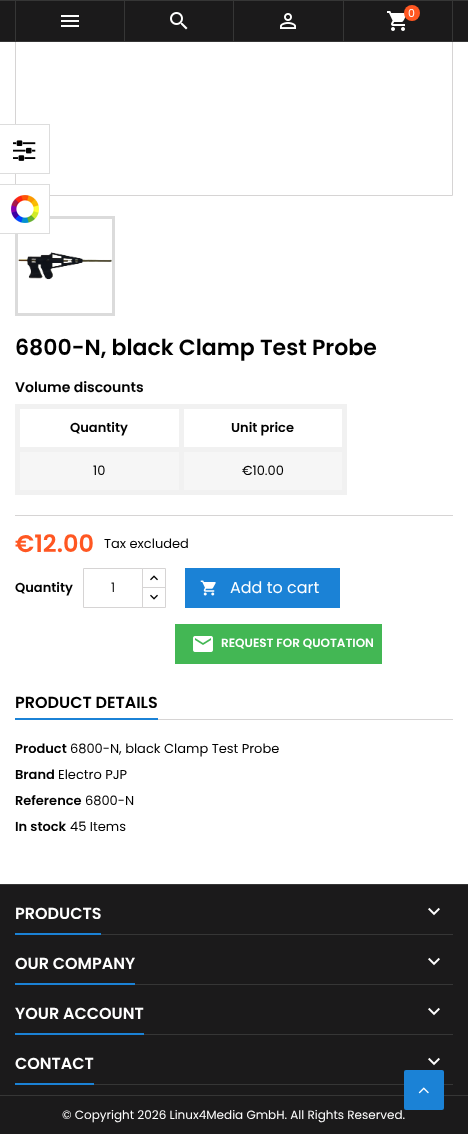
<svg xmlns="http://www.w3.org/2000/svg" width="468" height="1134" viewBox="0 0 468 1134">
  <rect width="100%" height="100%" fill="#fff"/>
  <path d="M15.5 -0.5h437v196H15.5z" fill="none" stroke="#d6d4d4"/>
  <path d="M0 1h468v40H0z" fill="#1b1a1b"/>
  <path d="M0 0h468v1H0z" fill="#363636"/>
  <path d="M0 41h468v1H0z" fill="#363636"/>
  <path d="M124 1h1v40H124z" fill="#363636"/>
  <path d="M15 1h1v40H15z" fill="#363636"/>
  <image x="61" y="15" width="18" height="12" href="img/1.png"/>
  <path d="M233 1h1v40H233z" fill="#363636"/>
  <image x="170" y="12" width="18" height="18" href="img/2.png"/>
  <path d="M343 1h1v40H343z" fill="#363636"/>
  <image x="280" y="13" width="16" height="16" href="img/3.png"/>
  <path d="M452 1h1v40H452z" fill="#363636"/>
  <image x="387" y="11" width="19" height="20" href="img/4.png"/>
  <circle cx="412" cy="13" r="8" fill="#ff5722"/>
  <path d="M16.5 217.5h97v97H16.5z" fill="none" stroke="#dbdbdb" stroke-width="3"/>
  <image x="18" y="252" width="94" height="28" href="img/5.png"/>
  <path d="M179 404h168v5H179z" fill="#f1f1f1"/>
  <path d="M179 447h168v5H179z" fill="#f1f1f1"/>
  <path d="M20 452h322v38H20z" fill="#f6f6f6"/>
  <path d="M342 447h5v48H342z" fill="#f1f1f1"/>
  <path d="M179 490h168v5H179z" fill="#f1f1f1"/>
  <path d="M179 447h5v48H179z" fill="#f1f1f1"/>
  <path d="M15 447h169v5H15z" fill="#f1f1f1"/>
  <path d="M179 404h5v48H179z" fill="#f1f1f1"/>
  <path d="M15 404h169v5H15z" fill="#f1f1f1"/>
  <path d="M15 490h169v5H15z" fill="#f1f1f1"/>
  <path d="M15 447h5v48H15z" fill="#f1f1f1"/>
  <path d="M15 404h5v48H15z" fill="#f1f1f1"/>
  <path d="M342 404h5v48H342z" fill="#f1f1f1"/>
  <path d="M15 515h438v1H15z" fill="#d6d4d4"/>
  <path d="M142.5 568.5h23v20H142.5z" fill="none" stroke="#d6d4d4"/>
  <path d="M143 588h22v1H143z" fill="#fff"/>
  <path d="M142.5 587.5h23v20H142.5z" fill="none" stroke="#d6d4d4"/>
  <path d="M83.5 568.5h59v39H83.5z" fill="none" stroke="#d6d4d4"/>
  <image x="150" y="575" width="8" height="6" href="img/6.png"/>
  <image x="150" y="594" width="8" height="6" href="img/7.png"/>
  <path d="M185 568h155v40H185z" fill="#1b82d6"/>
  <image x="200" y="580" width="16" height="16" href="img/8.png"/>
  <path d="M175 624h207v40H175z" fill="#43b754"/>
  <image x="193" y="636" width="20" height="16" href="img/9.png"/>
  <path d="M158 719h295v1H158z" fill="#d6d4d4"/>
  <path d="M15 718h143v2H15z" fill="#1b82d6"/>
  <path d="M0 885h468v210H0z" fill="#1b1a1b"/>
  <path d="M0 884h468v1H0z" fill="#363636"/>
  <path d="M15 125h1v48H15z" fill="#fff"/>
  <path d="M0 124h50v1H0z" fill="#ddd"/>
  <path d="M49 124h1v50H49z" fill="#ddd"/>
  <path d="M0 173h50v1H0z" fill="#ddd"/>
  <image x="13" y="140" width="23" height="21" href="img/10.png"/>
  <path d="M15 185h34v48H15z" fill="#fff"/>
  <image x="11" y="195" width="28" height="28" href="img/11.png"/>
  <path d="M0 184h50v1H0z" fill="#ddd"/>
  <path d="M49 184h1v50H49z" fill="#ddd"/>
  <path d="M0 233h50v1H0z" fill="#ddd"/>
  <path d="M101 934h352v1H101z" fill="#363636"/>
  <path d="M15 933h86v2H15z" fill="#1b82d6"/>
  <image x="428" y="907" width="12" height="9" href="img/12.png"/>
  <path d="M135 984h318v1H135z" fill="#363636"/>
  <path d="M15 983h120v2H15z" fill="#1b82d6"/>
  <image x="428" y="957" width="12" height="9" href="img/12.png"/>
  <path d="M144 1034h309v1H144z" fill="#363636"/>
  <path d="M15 1033h129v2H15z" fill="#1b82d6"/>
  <image x="428" y="1007" width="12" height="9" href="img/12.png"/>
  <path d="M94 1084h359v1H94z" fill="#363636"/>
  <path d="M15 1083h79v2H15z" fill="#1b82d6"/>
  <image x="428" y="1057" width="12" height="9" href="img/12.png"/>
  <path d="M0 1096h468v38H0z" fill="#1b1a1b"/>
  <path d="M0 1095h468v1H0z" fill="#363636"/>
  <text x="408" y="17" font-family="Poppins" font-size="11" fill="#fff">0</text>
  <text x="15" y="355" font-family="Poppins" font-size="22" font-weight="600" fill="#000">6800-N, black Clamp Test Probe</text>
  <text x="15" y="392" font-family="Poppins" font-size="14" font-weight="600" fill="#000">Volume discounts</text>
  <g font-family="Poppins" font-size="13" font-weight="600" fill="#000">
    <text x="70" y="432">Quantity</text>
    <text x="231" y="432">Unit price</text>
  </g>
  <g font-family="Poppins" font-size="13" fill="#000">
    <text x="93" y="475">10</text>
    <text x="242" y="475">€10.00</text>
  </g>
  <text x="15" y="552" font-family="Poppins" font-size="24" font-weight="600" fill="#ff5722">€12.00</text>
  <text x="104" y="548" font-family="Poppins" font-size="13" fill="#000">Tax excluded</text>
  <text x="15" y="592" font-family="Poppins" font-size="13" font-weight="600" fill="#000">Quantity</text>
  <text x="111" y="592" font-family="Poppins" font-size="13" fill="#232323">1</text>
  <text x="230" y="593" font-family="Poppins" font-size="16" fill="#fff">Add to cart</text>
  <text x="221" y="647" font-family="Poppins" font-size="12" font-weight="600" fill="#fff">REQUEST FOR QUOTATION</text>
  <text x="15" y="708" font-family="Poppins" font-size="16" font-weight="600" fill="#000">PRODUCT DETAILS</text>
  <text x="15" y="753" font-family="Poppins" font-size="13" font-weight="600" fill="#000">Product</text>
  <text x="70" y="753" font-family="Poppins" font-size="13" fill="#000">6800-N, black Clamp Test Probe</text>
  <text x="15" y="779" font-family="Poppins" font-size="13" font-weight="600" fill="#000">Brand</text>
  <text x="58" y="779" font-family="Poppins" font-size="13" fill="#000">Electro PJP</text>
  <text x="15" y="805" font-family="Poppins" font-size="13" font-weight="600" fill="#000">Reference</text>
  <text x="85" y="805" font-family="Poppins" font-size="13" fill="#000">6800-N</text>
  <text x="15" y="831" font-family="Poppins" font-size="13" font-weight="600" fill="#000">In stock</text>
  <text x="70" y="831" font-family="Poppins" font-size="13" fill="#000">45 Items</text>
  <g font-family="Poppins" font-size="16" font-weight="600" fill="#fff">
    <text x="15" y="919">PRODUCTS</text>
    <text x="15" y="969">OUR COMPANY</text>
    <text x="15" y="1019">YOUR ACCOUNT</text>
    <text x="15" y="1069">CONTACT</text>
  </g>
  <text x="62" y="1119" font-family="Poppins" font-size="12" fill="#fff">© Copyright 2026 Linux4Media GmbH. All Rights Reserved.</text>
  <rect x="404" y="1070" width="40" height="40" rx="2" fill="#1b82d6"/>
  <image x="418" y="1087" width="11" height="7" href="img/13.png"/>
</svg>
